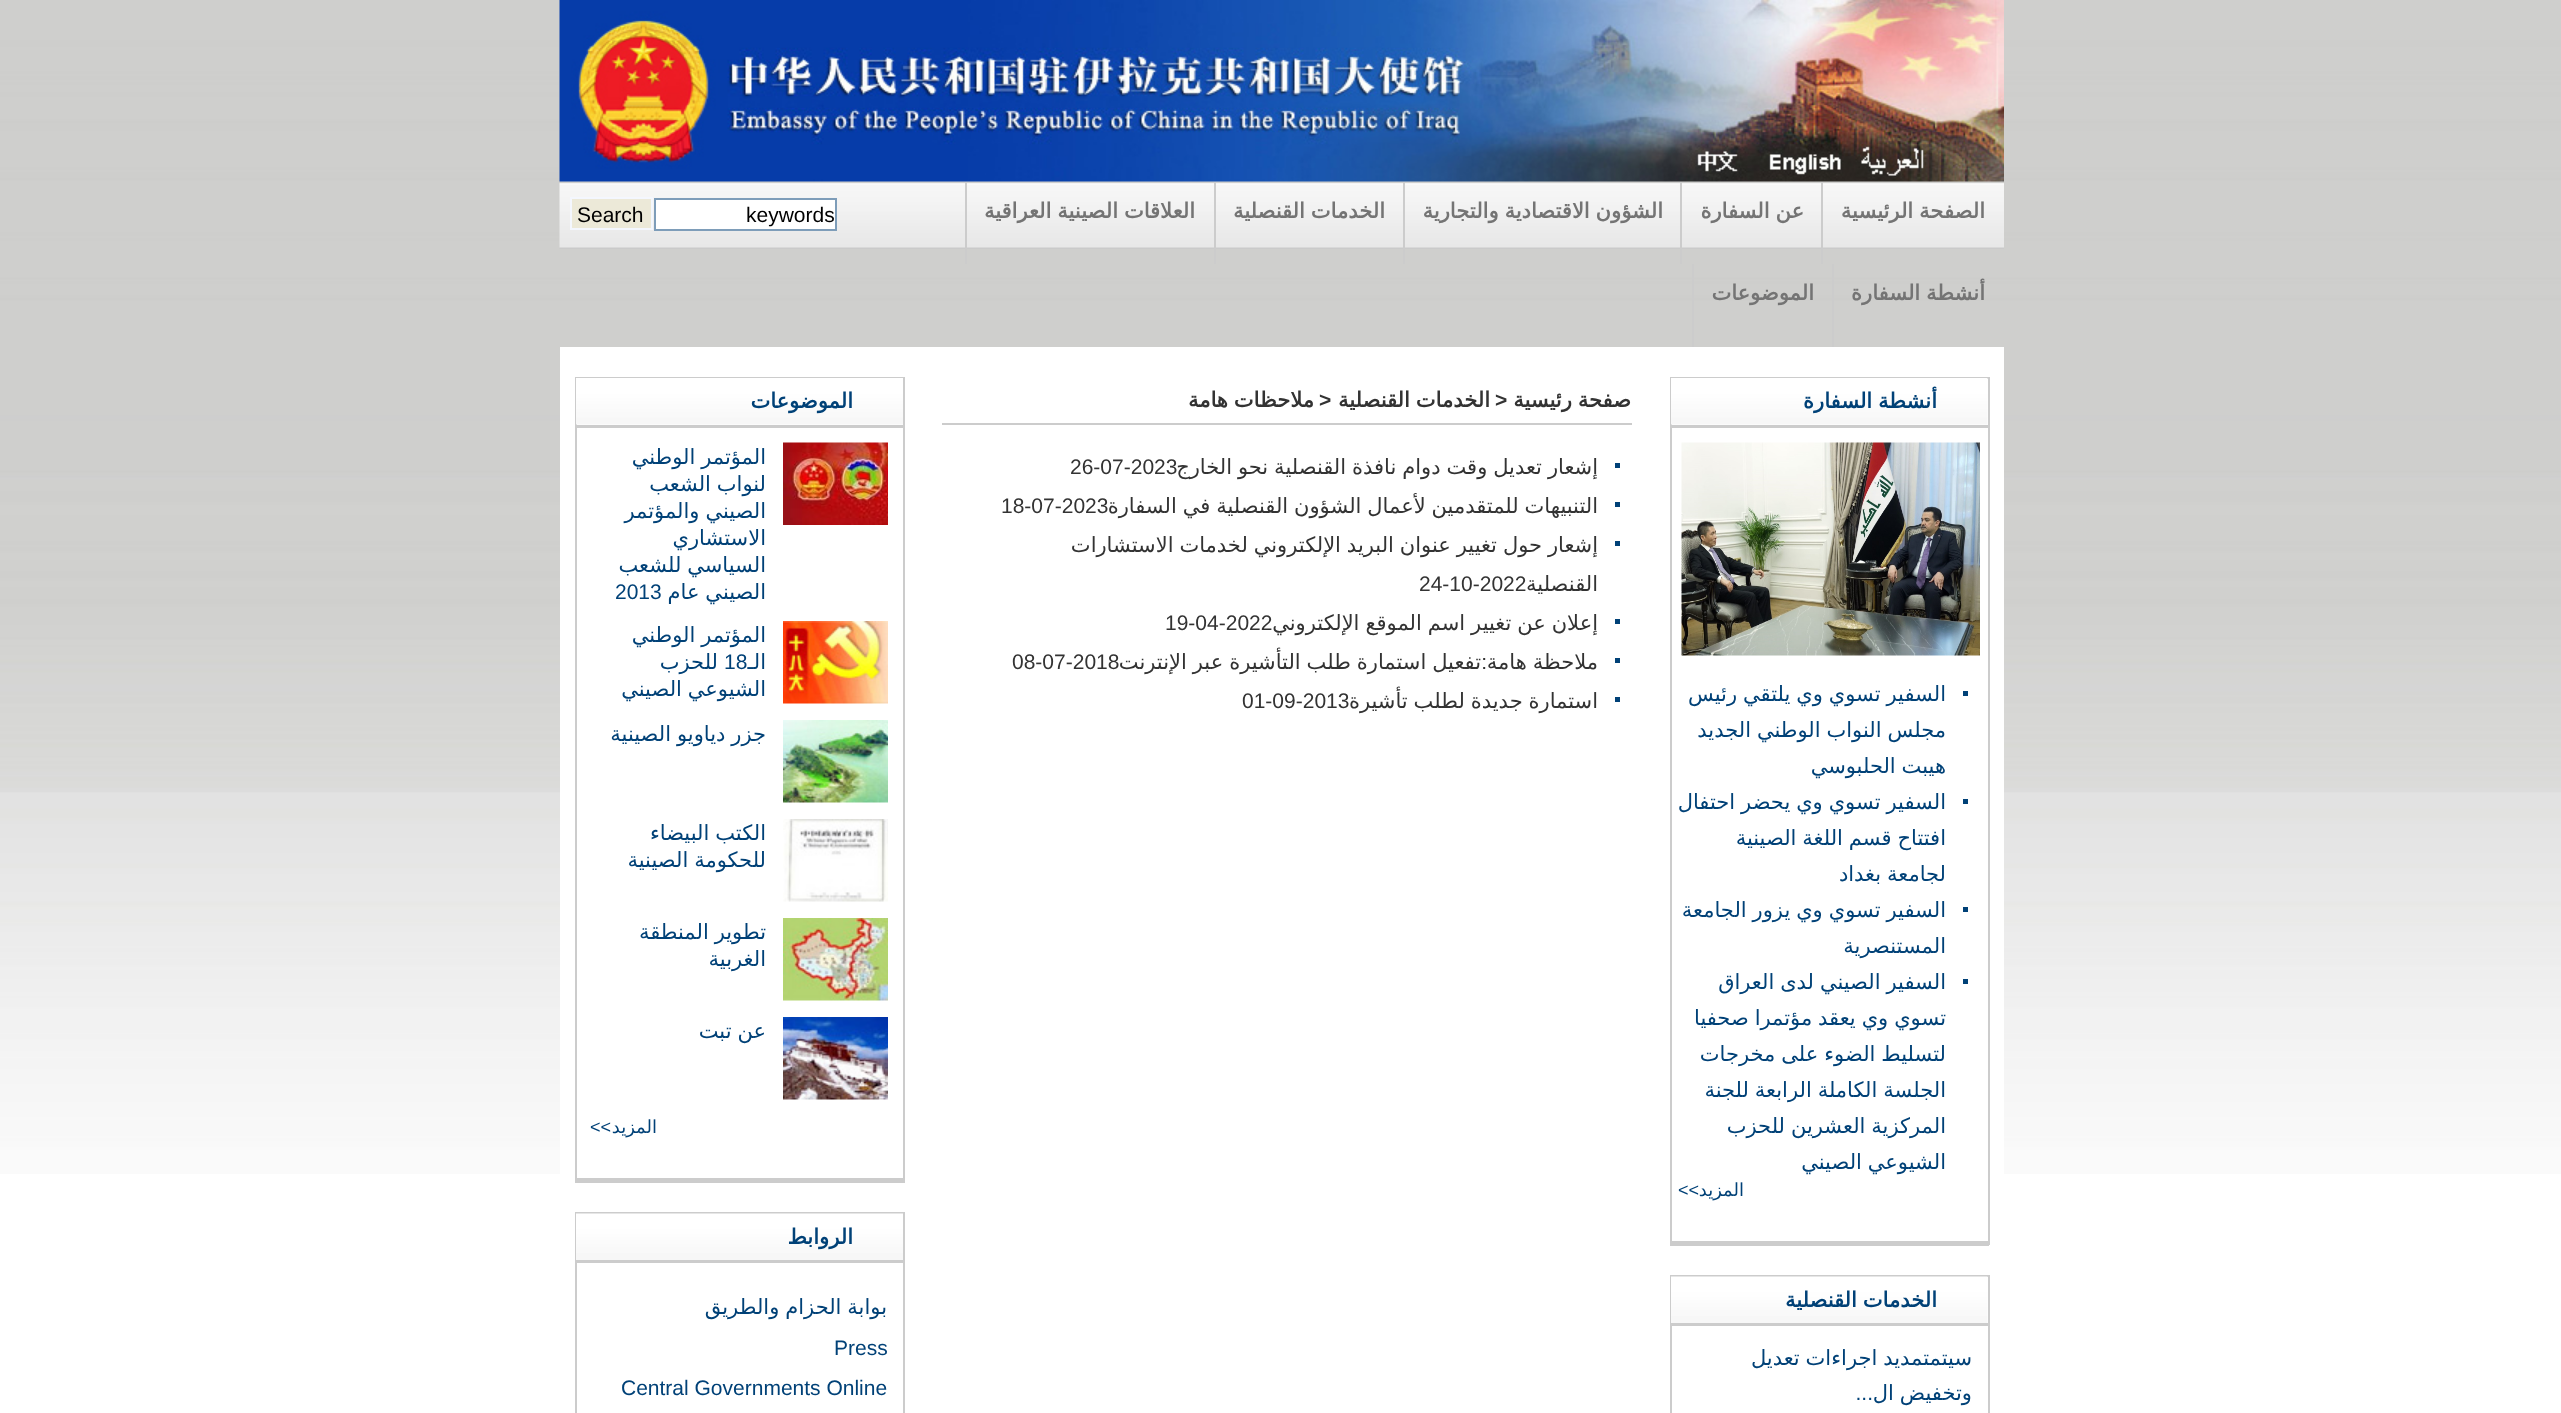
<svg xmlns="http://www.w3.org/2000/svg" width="2561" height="1413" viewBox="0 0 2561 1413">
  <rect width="100%" height="100%" fill="#fff"/>
  <image x="0" y="0" width="2561" height="1174" href="img/1.png"/>
  <image x="559" y="0" width="1445" height="182" href="img/2.png"/>
  <image x="559" y="183" width="1445" height="66" href="img/3.png"/>
  <path d="M1821 182h2v82H1821z" fill="#ccc"/>
  <path d="M1680 182h2v82H1680z" fill="#ccc"/>
  <path d="M1403 182h2v82H1403z" fill="#ccc"/>
  <path d="M1214 182h2v82H1214z" fill="#ccc"/>
  <path d="M965 182h2v82H965z" fill="#ccc"/>
  <path d="M1832 264h2v83H1832z" fill="#ccc"/>
  <path d="M1692 264h2v83H1692z" fill="#ccc"/>
  <path d="M655 199h181v31H655z" fill="#fff" stroke="#7e9db9" stroke-width="2"/>
  <path d="M571 198h81v31H571z" fill="#ece9d8" stroke="#f4f7fe" stroke-width="2"/>
  <path d="M560 347h1444v827H560z" fill="#fff"/>
  <path d="M1670 377h319v2H1670z" fill="#ccc"/>
  <path d="M1988 377h2v868H1988z" fill="#ccc"/>
  <path d="M1670 1241h319v5H1670z" fill="#ccc"/>
  <path d="M1670 377h2v868H1670z" fill="#ccc"/>
  <image x="1671" y="378" width="317" height="47" href="img/4.png"/>
  <path d="M1671 425h317v3H1671z" fill="#ccc"/>
  <image x="1681" y="442" width="299" height="214" href="img/5.png"/>
  <path d="M1963 691h5v5H1963z" fill="#004177"/>
  <path d="M1963 799h5v5H1963z" fill="#004177"/>
  <path d="M1963 907h5v5H1963z" fill="#004177"/>
  <path d="M1963 979h5v5H1963z" fill="#004177"/>
  <path d="M1670 1275h319v2H1670z" fill="#ccc"/>
  <path d="M1988 1275h2v138H1988z" fill="#ccc"/>
  <path d="M1670 1275h2v138H1670z" fill="#ccc"/>
  <image x="1671" y="1276" width="317" height="47" href="img/6.png"/>
  <path d="M1671 1323h317v3H1671z" fill="#ccc"/>
  <path d="M942 423h690v2H942z" fill="#ccc"/>
  <path d="M1615 463h5v5H1615z" fill="#004177"/>
  <path d="M1615 502h5v5H1615z" fill="#004177"/>
  <path d="M1615 541h5v5H1615z" fill="#004177"/>
  <path d="M1615 619h5v5H1615z" fill="#004177"/>
  <path d="M1615 658h5v5H1615z" fill="#004177"/>
  <path d="M1615 697h5v5H1615z" fill="#004177"/>
  <path d="M575 377h330v1H575z" fill="#ccc"/>
  <path d="M903 377h2v805H903z" fill="#ccc"/>
  <path d="M575 1178h330v5H575z" fill="#ccc"/>
  <path d="M575 377h2v805H575z" fill="#ccc"/>
  <image x="576" y="378" width="327" height="47" href="img/7.png"/>
  <path d="M576 425h327v3H576z" fill="#ccc"/>
  <image x="783" y="442" width="105" height="83" href="img/8.png"/>
  <image x="783" y="621" width="105" height="83" href="img/9.png"/>
  <image x="783" y="720" width="105" height="83" href="img/10.png"/>
  <image x="783" y="819" width="105" height="83" href="img/11.png"/>
  <image x="783" y="918" width="105" height="83" href="img/12.png"/>
  <image x="783" y="1017" width="105" height="83" href="img/13.png"/>
  <path d="M575 1212h330v2H575z" fill="#ccc"/>
  <path d="M903 1212h2v201H903z" fill="#ccc"/>
  <path d="M575 1212h2v201H575z" fill="#ccc"/>
  <image x="576" y="1213" width="327" height="47" href="img/14.png"/>
  <path d="M576 1260h327v3H576z" fill="#ccc"/>
  <g font-family="DejaVu Sans" font-size="21" font-weight="bold" direction="rtl" fill="#747474">
    <text x="1985" y="218" word-spacing="-0.75">الصفحة الرئيسية</text>
    <text x="1804" y="218" word-spacing="-0.75">عن السفارة</text>
    <text x="1663" y="218" word-spacing="-0.75">الشؤون الاقتصادية والتجارية</text>
    <text x="1385" y="218" word-spacing="-0.75">الخدمات القنصلية</text>
    <text x="1195" y="218" word-spacing="-0.75">العلاقات الصينية العراقية</text>
    <text x="1985" y="300" word-spacing="-0.75">أنشطة السفارة</text>
    <text x="1814" y="300">الموضوعات</text>
  </g>
  <g font-family="Liberation Sans" font-size="21" fill="#000">
    <text x="746" y="222">keywords</text>
    <text x="577" y="222">Search</text>
  </g>
  <text x="1937" y="408" word-spacing="-0.75" font-family="DejaVu Sans" font-size="21" font-weight="bold" direction="rtl" fill="#004177">أنشطة السفارة</text>
  <g font-family="DejaVu Sans" font-size="21" direction="rtl" fill="#004177">
    <text x="1946" y="701" word-spacing="-0.75">السفير تسوي وي يلتقي رئيس</text>
    <text x="1946" y="737" word-spacing="-0.75">مجلس النواب الوطني الجديد</text>
    <text x="1946" y="773" word-spacing="-0.75">هيبت الحلبوسي</text>
    <text x="1946" y="809" word-spacing="-0.75">السفير تسوي وي يحضر احتفال</text>
    <text x="1946" y="845" word-spacing="-0.75">افتتاح قسم اللغة الصينية</text>
    <text x="1946" y="881" word-spacing="-0.75">لجامعة بغداد</text>
    <text x="1946" y="917" word-spacing="-0.75">السفير تسوي وي يزور الجامعة</text>
    <text x="1946" y="953">المستنصرية</text>
    <text x="1946" y="989" word-spacing="-0.75">السفير الصيني لدى العراق</text>
    <text x="1946" y="1025" word-spacing="-0.75">تسوي وي يعقد مؤتمرا صحفيا</text>
    <text x="1946" y="1061" word-spacing="-0.75">لتسليط الضوء على مخرجات</text>
    <text x="1946" y="1097" word-spacing="-0.75">الجلسة الكاملة الرابعة للجنة</text>
    <text x="1946" y="1133" word-spacing="-0.75">المركزية العشرين للحزب</text>
    <text x="1946" y="1169" word-spacing="-0.75">الشيوعي الصيني</text>
  </g>
  <text x="1744" y="1196" font-family="DejaVu Sans" font-size="18" direction="rtl" fill="#004177">المزيد</text>
  <text x="1699" y="1196" font-family="Liberation Sans" font-size="18" direction="rtl" fill="#004177">&gt;&gt;</text>
  <text x="1937" y="1307" word-spacing="-0.75" font-family="DejaVu Sans" font-size="21" font-weight="bold" direction="rtl" fill="#004177">الخدمات القنصلية</text>
  <g font-family="DejaVu Sans" font-size="21" direction="rtl" fill="#004177">
    <text x="1972" y="1365" word-spacing="-0.75">سيتمتمديد اجراءات تعديل</text>
    <text x="1972" y="1400" word-spacing="-0.75">وتخفيض ال</text>
  </g>
  <text x="1873" y="1400" font-family="Liberation Sans" font-size="21" direction="rtl" fill="#004177">...</text>
  <text x="1631" y="407" word-spacing="-0.75" font-family="DejaVu Sans" font-size="21" font-weight="bold" direction="rtl" fill="#333">صفحة رئيسية</text>
  <text x="1495" y="407" font-family="Liberation Sans" font-size="21" font-weight="bold" fill="#333">&gt;</text>
  <text x="1490" y="407" word-spacing="-0.75" font-family="DejaVu Sans" font-size="21" font-weight="bold" direction="rtl" fill="#333">الخدمات القنصلية</text>
  <text x="1319" y="407" font-family="Liberation Sans" font-size="21" font-weight="bold" fill="#333">&gt;</text>
  <text x="1314" y="407" word-spacing="-0.75" font-family="DejaVu Sans" font-size="21" font-weight="bold" direction="rtl" fill="#333">ملاحظات هامة</text>
  <text x="1598" y="474" word-spacing="-0.75" font-family="DejaVu Sans" font-size="21" direction="rtl" fill="#333">إشعار تعديل وقت دوام نافذة القنصلية نحو الخارج</text>
  <text x="1070" y="474" font-family="Liberation Sans" font-size="21" fill="#333">26-07-2023</text>
  <text x="1598" y="513" word-spacing="-0.75" font-family="DejaVu Sans" font-size="21" direction="rtl" fill="#333">التنبيهات للمتقدمين لأعمال الشؤون القنصلية في السفارة</text>
  <text x="1001" y="513" font-family="Liberation Sans" font-size="21" fill="#333">18-07-2023</text>
  <g font-family="DejaVu Sans" font-size="21" direction="rtl" fill="#333">
    <text x="1598" y="552" word-spacing="-0.75">إشعار حول تغيير عنوان البريد الإلكتروني لخدمات الاستشارات</text>
    <text x="1598" y="591">القنصلية</text>
  </g>
  <text x="1419" y="591" font-family="Liberation Sans" font-size="21" fill="#333">24-10-2022</text>
  <text x="1598" y="630" word-spacing="-0.75" font-family="DejaVu Sans" font-size="21" direction="rtl" fill="#333">إعلان عن تغيير اسم الموقع الإلكتروني</text>
  <text x="1165" y="630" font-family="Liberation Sans" font-size="21" fill="#333">19-04-2022</text>
  <g font-family="DejaVu Sans" font-size="21" direction="rtl" fill="#333">
    <text x="1598" y="669" word-spacing="-0.75">ملاحظة هامة</text>
    <text x="1481" y="669" word-spacing="-0.75">تفعيل استمارة طلب التأشيرة عبر الإنترنت</text>
  </g>
  <text x="1012" y="669" font-family="Liberation Sans" font-size="21" fill="#333">08-07-2018</text>
  <text x="1487" y="669" font-family="Liberation Sans" font-size="21" direction="rtl" fill="#333">:</text>
  <text x="1598" y="708" word-spacing="-0.75" font-family="DejaVu Sans" font-size="21" direction="rtl" fill="#333">استمارة جديدة لطلب تأشيرة</text>
  <text x="1242" y="708" font-family="Liberation Sans" font-size="21" fill="#333">01-09-2013</text>
  <text x="853" y="408" font-family="DejaVu Sans" font-size="21" font-weight="bold" direction="rtl" fill="#004177">الموضوعات</text>
  <g font-family="DejaVu Sans" font-size="21" direction="rtl" fill="#004177">
    <text x="766" y="464" word-spacing="-0.75">المؤتمر الوطني</text>
    <text x="766" y="491" word-spacing="-0.75">لنواب الشعب</text>
    <text x="766" y="518" word-spacing="-0.75">الصيني والمؤتمر</text>
    <text x="766" y="545">الاستشاري</text>
    <text x="766" y="572" word-spacing="-0.75">السياسي للشعب</text>
    <text x="766" y="599" word-spacing="-0.75">الصيني عام</text>
  </g>
  <text x="615" y="599" font-family="Liberation Sans" font-size="21" fill="#004177">2013</text>
  <g font-family="DejaVu Sans" font-size="21" direction="rtl" fill="#004177">
    <text x="766" y="642" word-spacing="-0.75">المؤتمر الوطني</text>
    <text x="766" y="669">الـ</text>
  </g>
  <text x="724" y="669" font-family="Liberation Sans" font-size="21" fill="#004177">18</text>
  <g font-family="DejaVu Sans" font-size="21" direction="rtl" fill="#004177">
    <text x="718" y="669">للحزب</text>
    <text x="766" y="696" word-spacing="-0.75">الشيوعي الصيني</text>
    <text x="766" y="741" word-spacing="-0.75">جزر دياويو الصينية</text>
    <text x="766" y="840" word-spacing="-0.75">الكتب البيضاء</text>
    <text x="766" y="867" word-spacing="-0.75">للحكومة الصينية</text>
    <text x="766" y="939" word-spacing="-0.75">تطوير المنطقة</text>
    <text x="766" y="966">الغربية</text>
    <text x="766" y="1038" word-spacing="-0.75">عن تبت</text>
  </g>
  <text x="657" y="1133" font-family="DejaVu Sans" font-size="18" direction="rtl" fill="#004177">المزيد</text>
  <text x="611" y="1133" font-family="Liberation Sans" font-size="18" direction="rtl" fill="#004177">&gt;&gt;</text>
  <text x="853" y="1244" font-family="DejaVu Sans" font-size="21" font-weight="bold" direction="rtl" fill="#004177">الروابط</text>
  <text x="887" y="1314" word-spacing="-0.75" font-family="DejaVu Sans" font-size="21" direction="rtl" fill="#004177">بوابة الحزام والطريق</text>
  <g font-family="Liberation Sans" font-size="21" fill="#004177">
    <text x="834" y="1355">Press</text>
    <text x="621" y="1395">Central Governments Online</text>
  </g>
</svg>
